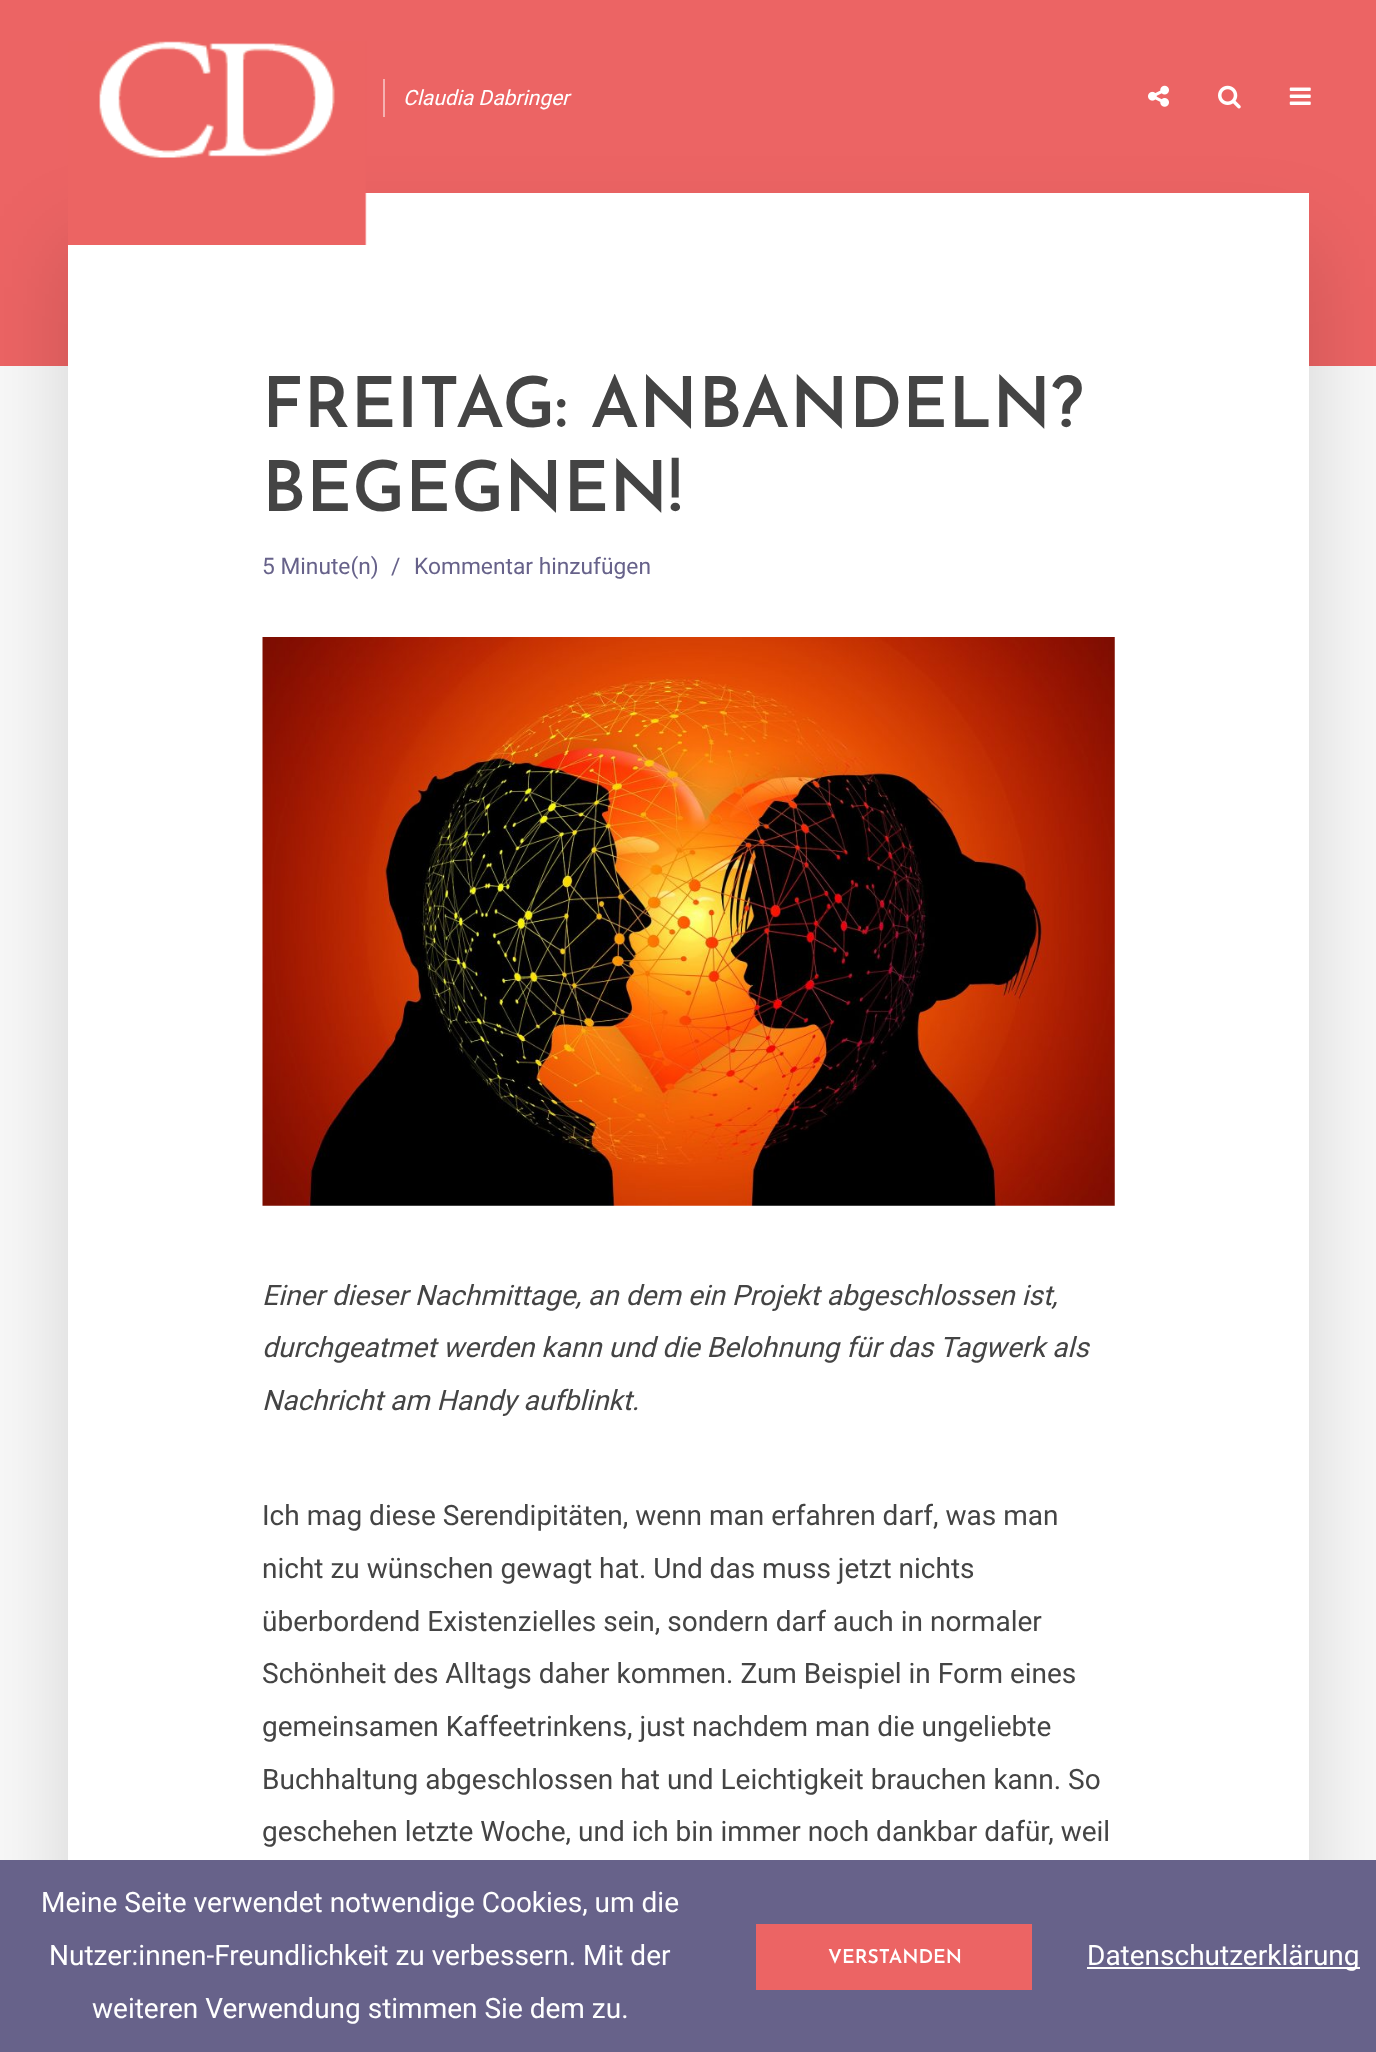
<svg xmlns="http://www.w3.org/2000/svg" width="1376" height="2052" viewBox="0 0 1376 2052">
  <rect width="100%" height="100%" fill="#f8f8f8"/>
  <path d="M0 0h1376v366H0z" fill="#ec6464"/>
  <path d="M68 245h1241v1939H68z" fill="#01010126" filter="blur(44px)"/>
  <path d="M68 193h1241v1667H68z" fill="#fff"/>
  <image x="68" y="41" width="299" height="204" href="img/1.png"/>
  <path d="M383 79h2v38H383z" fill="#f5b1b1"/>
  <image x="1148" y="85" width="21" height="22" href="img/2.png"/>
  <image x="1218" y="85" width="23" height="24" href="img/3.png"/>
  <image x="1289" y="87" width="22" height="18" href="img/4.png"/>
  <image x="262" y="637" width="853" height="569" href="img/5.png"/>
  <path d="M0 1860h1376v192H0z" fill="#67628a"/>
  <path d="M756 1924h276v66H756z" fill="#ec6464"/>
  <path d="M1087 1967h273v2H1087z" fill="#fff"/>
  <text x="403" y="105" font-family="Roboto" font-size="21" font-style="italic" fill="#fff">Claudia Dabringer</text>
  <g font-family="Josefin Sans" font-size="70" font-weight="600" fill="#444">
    <text x="262" y="427">FREITAG: ANBANDELN?</text>
    <text x="262" y="511">BEGEGNEN!</text>
  </g>
  <g font-family="Roboto" font-size="22.75" fill="#67628a">
    <text x="262" y="574">5 Minute(n)</text>
    <text x="391" y="574">/</text>
    <text x="414" y="574">Kommentar hinzufügen</text>
  </g>
  <g font-family="Roboto" font-size="28" font-style="italic" fill="#444">
    <text x="262" y="1305">Einer dieser Nachmittage, an dem ein Projekt abgeschlossen ist,</text>
    <text x="262" y="1357">durchgeatmet werden kann und die Belohnung für das Tagwerk als</text>
    <text x="262" y="1410">Nachricht am Handy aufblinkt.</text>
  </g>
  <g font-family="Roboto" font-size="28" fill="#444">
    <text x="262" y="1525">Ich mag diese Serendipitäten, wenn man erfahren darf, was man</text>
    <text x="262" y="1578">nicht zu wünschen gewagt hat. Und das muss jetzt nichts</text>
    <text x="262" y="1631">überbordend Existenzielles sein, sondern darf auch in normaler</text>
    <text x="262" y="1683">Schönheit des Alltags daher kommen. Zum Beispiel in Form eines</text>
    <text x="262" y="1736">gemeinsamen Kaffeetrinkens, just nachdem man die ungeliebte</text>
    <text x="262" y="1789">Buchhaltung abgeschlossen hat und Leichtigkeit brauchen kann. So</text>
    <text x="262" y="1841">geschehen letzte Woche, und ich bin immer noch dankbar dafür, weil</text>
  </g>
  <g font-family="Roboto" font-size="28" fill="#fff">
    <text x="41" y="1912">Meine Seite verwendet notwendige Cookies, um die</text>
    <text x="49" y="1965">Nutzer:innen-Freundlichkeit zu verbessern. Mit der</text>
    <text x="92" y="2018">weiteren Verwendung stimmen Sie dem zu.</text>
  </g>
  <text x="828" y="1963" font-family="Josefin Sans" font-size="19.25" font-weight="600" fill="#fff">VERSTANDEN</text>
  <text x="1087" y="1965" font-family="Roboto" font-size="28" fill="#fff">Datenschutzerklärung</text>
</svg>
